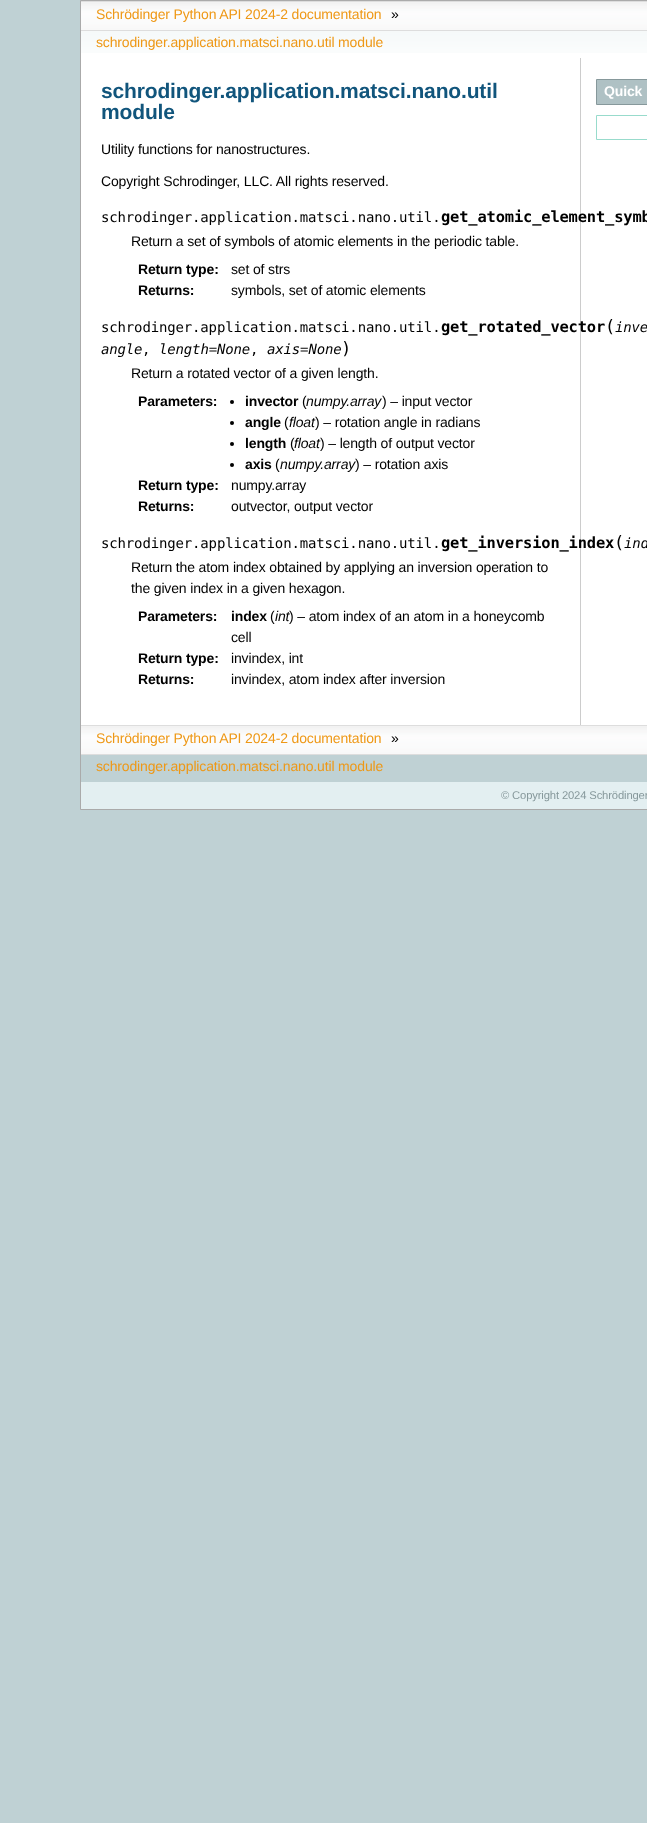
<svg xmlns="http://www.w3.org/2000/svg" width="647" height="1823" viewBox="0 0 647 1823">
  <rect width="100%" height="100%" fill="#bfd1d4"/>
  <path d="M80.5 0.5h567v809H80.5z" fill="none" stroke="#aaa"/>
  <image x="81" y="2" width="566" height="28" href="img/1.png"/>
  <path d="M81 1h566v1H81z" fill="#ddd"/>
  <path d="M81 30h566v1H81z" fill="#ddd"/>
  <path d="M81 53h566v672H81z" fill="#fff"/>
  <image x="81" y="31" width="566" height="22" href="img/2.png"/>
  <path d="M580 58h1v667H580z" fill="#ccc"/>
  <circle cx="232" cy="402" r="2" fill="#000"/>
  <circle cx="232" cy="423" r="2" fill="#000"/>
  <circle cx="232" cy="444" r="2" fill="#000"/>
  <circle cx="232" cy="465" r="2" fill="#000"/>
  <path d="M596.5 79.5h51v25H596.5z" fill="#afc1c4" stroke="#86989b"/>
  <path d="M596.5 115.5h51v24H596.5z" fill="none" stroke="#98dbcc"/>
  <image x="81" y="726" width="566" height="28" href="img/1.png"/>
  <path d="M81 725h566v1H81z" fill="#ddd"/>
  <path d="M81 754h566v1H81z" fill="#ddd"/>
  <path d="M81 782h566v27H81z" fill="#e3eff1"/>
  <text x="96" y="19" font-family="Liberation Sans" font-size="14" letter-spacing="-0.15" fill="#ee9816">Schrödinger Python API 2024-2 documentation</text>
  <text x="391" y="19" font-family="Liberation Sans" font-size="14" letter-spacing="-0.15" fill="#000">»</text>
  <text x="96" y="47" font-family="Liberation Sans" font-size="14" letter-spacing="-0.15" fill="#ee9816">schrodinger.application.matsci.nano.util module</text>
  <g font-family="Liberation Sans" font-size="21" font-weight="bold" letter-spacing="-0.15" fill="#11557c">
    <text x="101" y="98">schrodinger.application.matsci.nano.util</text>
    <text x="101" y="119">module</text>
  </g>
  <g font-family="Liberation Sans" font-size="14" letter-spacing="-0.15" fill="#000">
    <text x="101" y="154">Utility functions for nanostructures.</text>
    <text x="101" y="186">Copyright Schrodinger, LLC. All rights reserved.</text>
  </g>
  <text x="101" y="222" font-family="DejaVu Sans Mono" font-size="14" letter-spacing="-0.15" fill="#000">schrodinger.application.matsci.nano.util.</text>
  <text x="441" y="222" font-family="DejaVu Sans Mono" font-size="15.4" font-weight="bold" letter-spacing="-0.15" fill="#000">get_atomic_element_symb</text>
  <text x="131" y="246" font-family="Liberation Sans" font-size="14" letter-spacing="-0.15" fill="#000">Return a set of symbols of atomic elements in the periodic table.</text>
  <text x="138" y="274" font-family="Liberation Sans" font-size="14" font-weight="bold" letter-spacing="-0.15" fill="#000">Return type:</text>
  <text x="231" y="274" font-family="Liberation Sans" font-size="14" letter-spacing="-0.15" fill="#000">set of strs</text>
  <text x="138" y="295" font-family="Liberation Sans" font-size="14" font-weight="bold" letter-spacing="-0.15" fill="#000">Returns:</text>
  <text x="231" y="295" font-family="Liberation Sans" font-size="14" letter-spacing="-0.15" fill="#000">symbols, set of atomic elements</text>
  <text x="101" y="332" font-family="DejaVu Sans Mono" font-size="14" letter-spacing="-0.15" fill="#000">schrodinger.application.matsci.nano.util.</text>
  <text x="441" y="332" font-family="DejaVu Sans Mono" font-size="15.4" font-weight="bold" letter-spacing="-0.15" fill="#000">get_rotated_vector</text>
  <text x="605" y="332" font-family="DejaVu Sans Mono" font-size="17" letter-spacing="-0.15" fill="#000">(</text>
  <g font-family="DejaVu Sans Mono" font-size="14" font-style="italic" letter-spacing="-0.15" fill="#000">
    <text x="615" y="332">inve</text>
    <text x="101" y="354">angle</text>
  </g>
  <text x="142" y="354" font-family="DejaVu Sans Mono" font-size="14" letter-spacing="-0.15" fill="#000">,</text>
  <text x="159" y="354" font-family="DejaVu Sans Mono" font-size="14" font-style="italic" letter-spacing="-0.15" fill="#000">length=None</text>
  <text x="250" y="354" font-family="DejaVu Sans Mono" font-size="14" letter-spacing="-0.15" fill="#000">,</text>
  <text x="267" y="354" font-family="DejaVu Sans Mono" font-size="14" font-style="italic" letter-spacing="-0.15" fill="#000">axis=None</text>
  <text x="341" y="354" font-family="DejaVu Sans Mono" font-size="17" letter-spacing="-0.15" fill="#000">)</text>
  <text x="131" y="378" font-family="Liberation Sans" font-size="14" letter-spacing="-0.15" fill="#000">Return a rotated vector of a given length.</text>
  <g font-family="Liberation Sans" font-size="14" font-weight="bold" letter-spacing="-0.15" fill="#000">
    <text x="138" y="406">Parameters:</text>
    <text x="245" y="406">invector</text>
  </g>
  <text x="302" y="406" font-family="Liberation Sans" font-size="14" letter-spacing="-0.15" fill="#000">(</text>
  <text x="306" y="406" font-family="Liberation Sans" font-size="14" font-style="italic" letter-spacing="-0.15" fill="#000">numpy.array</text>
  <text x="382" y="406" font-family="Liberation Sans" font-size="14" letter-spacing="-0.15" fill="#000">) – input vector</text>
  <text x="245" y="427" font-family="Liberation Sans" font-size="14" font-weight="bold" letter-spacing="-0.15" fill="#000">angle</text>
  <text x="284" y="427" font-family="Liberation Sans" font-size="14" letter-spacing="-0.15" fill="#000">(</text>
  <text x="289" y="427" font-family="Liberation Sans" font-size="14" font-style="italic" letter-spacing="-0.15" fill="#000">float</text>
  <text x="315" y="427" font-family="Liberation Sans" font-size="14" letter-spacing="-0.15" fill="#000">) – rotation angle in radians</text>
  <text x="245" y="448" font-family="Liberation Sans" font-size="14" font-weight="bold" letter-spacing="-0.15" fill="#000">length</text>
  <text x="290" y="448" font-family="Liberation Sans" font-size="14" letter-spacing="-0.15" fill="#000">(</text>
  <text x="294" y="448" font-family="Liberation Sans" font-size="14" font-style="italic" letter-spacing="-0.15" fill="#000">float</text>
  <text x="320" y="448" font-family="Liberation Sans" font-size="14" letter-spacing="-0.15" fill="#000">) – length of output vector</text>
  <text x="245" y="469" font-family="Liberation Sans" font-size="14" font-weight="bold" letter-spacing="-0.15" fill="#000">axis</text>
  <text x="275" y="469" font-family="Liberation Sans" font-size="14" letter-spacing="-0.15" fill="#000">(</text>
  <text x="280" y="469" font-family="Liberation Sans" font-size="14" font-style="italic" letter-spacing="-0.15" fill="#000">numpy.array</text>
  <text x="355" y="469" font-family="Liberation Sans" font-size="14" letter-spacing="-0.15" fill="#000">) – rotation axis</text>
  <text x="138" y="490" font-family="Liberation Sans" font-size="14" font-weight="bold" letter-spacing="-0.15" fill="#000">Return type:</text>
  <text x="231" y="490" font-family="Liberation Sans" font-size="14" letter-spacing="-0.15" fill="#000">numpy.array</text>
  <text x="138" y="511" font-family="Liberation Sans" font-size="14" font-weight="bold" letter-spacing="-0.15" fill="#000">Returns:</text>
  <text x="231" y="511" font-family="Liberation Sans" font-size="14" letter-spacing="-0.15" fill="#000">outvector, output vector</text>
  <text x="101" y="548" font-family="DejaVu Sans Mono" font-size="14" letter-spacing="-0.15" fill="#000">schrodinger.application.matsci.nano.util.</text>
  <text x="441" y="548" font-family="DejaVu Sans Mono" font-size="15.4" font-weight="bold" letter-spacing="-0.15" fill="#000">get_inversion_index</text>
  <text x="614" y="548" font-family="DejaVu Sans Mono" font-size="17" letter-spacing="-0.15" fill="#000">(</text>
  <text x="624" y="548" font-family="DejaVu Sans Mono" font-size="14" font-style="italic" letter-spacing="-0.15" fill="#000">ind</text>
  <g font-family="Liberation Sans" font-size="14" letter-spacing="-0.15" fill="#000">
    <text x="131" y="572">Return the atom index obtained by applying an inversion operation to</text>
    <text x="131" y="593">the given index in a given hexagon.</text>
  </g>
  <g font-family="Liberation Sans" font-size="14" font-weight="bold" letter-spacing="-0.15" fill="#000">
    <text x="138" y="621">Parameters:</text>
    <text x="231" y="621">index</text>
  </g>
  <text x="270" y="621" font-family="Liberation Sans" font-size="14" letter-spacing="-0.15" fill="#000">(</text>
  <text x="275" y="621" font-family="Liberation Sans" font-size="14" font-style="italic" letter-spacing="-0.15" fill="#000">int</text>
  <g font-family="Liberation Sans" font-size="14" letter-spacing="-0.15" fill="#000">
    <text x="289" y="621">) – atom index of an atom in a honeycomb</text>
    <text x="231" y="642">cell</text>
  </g>
  <text x="138" y="663" font-family="Liberation Sans" font-size="14" font-weight="bold" letter-spacing="-0.15" fill="#000">Return type:</text>
  <text x="231" y="663" font-family="Liberation Sans" font-size="14" letter-spacing="-0.15" fill="#000">invindex, int</text>
  <text x="138" y="684" font-family="Liberation Sans" font-size="14" font-weight="bold" letter-spacing="-0.15" fill="#000">Returns:</text>
  <text x="231" y="684" font-family="Liberation Sans" font-size="14" letter-spacing="-0.15" fill="#000">invindex, atom index after inversion</text>
  <text x="604" y="96" font-family="Liberation Sans" font-size="14" font-weight="bold" letter-spacing="-0.15" fill="#fff">Quick</text>
  <text x="96" y="743" font-family="Liberation Sans" font-size="14" letter-spacing="-0.15" fill="#ee9816">Schrödinger Python API 2024-2 documentation</text>
  <text x="391" y="743" font-family="Liberation Sans" font-size="14" letter-spacing="-0.15" fill="#000">»</text>
  <text x="96" y="771" font-family="Liberation Sans" font-size="14" letter-spacing="-0.15" fill="#ee9816">schrodinger.application.matsci.nano.util module</text>
  <text x="501" y="799" font-family="Liberation Sans" font-size="11.25" letter-spacing="-0.15" fill="#86989b">© Copyright 2024 Schrödinger</text>
</svg>
